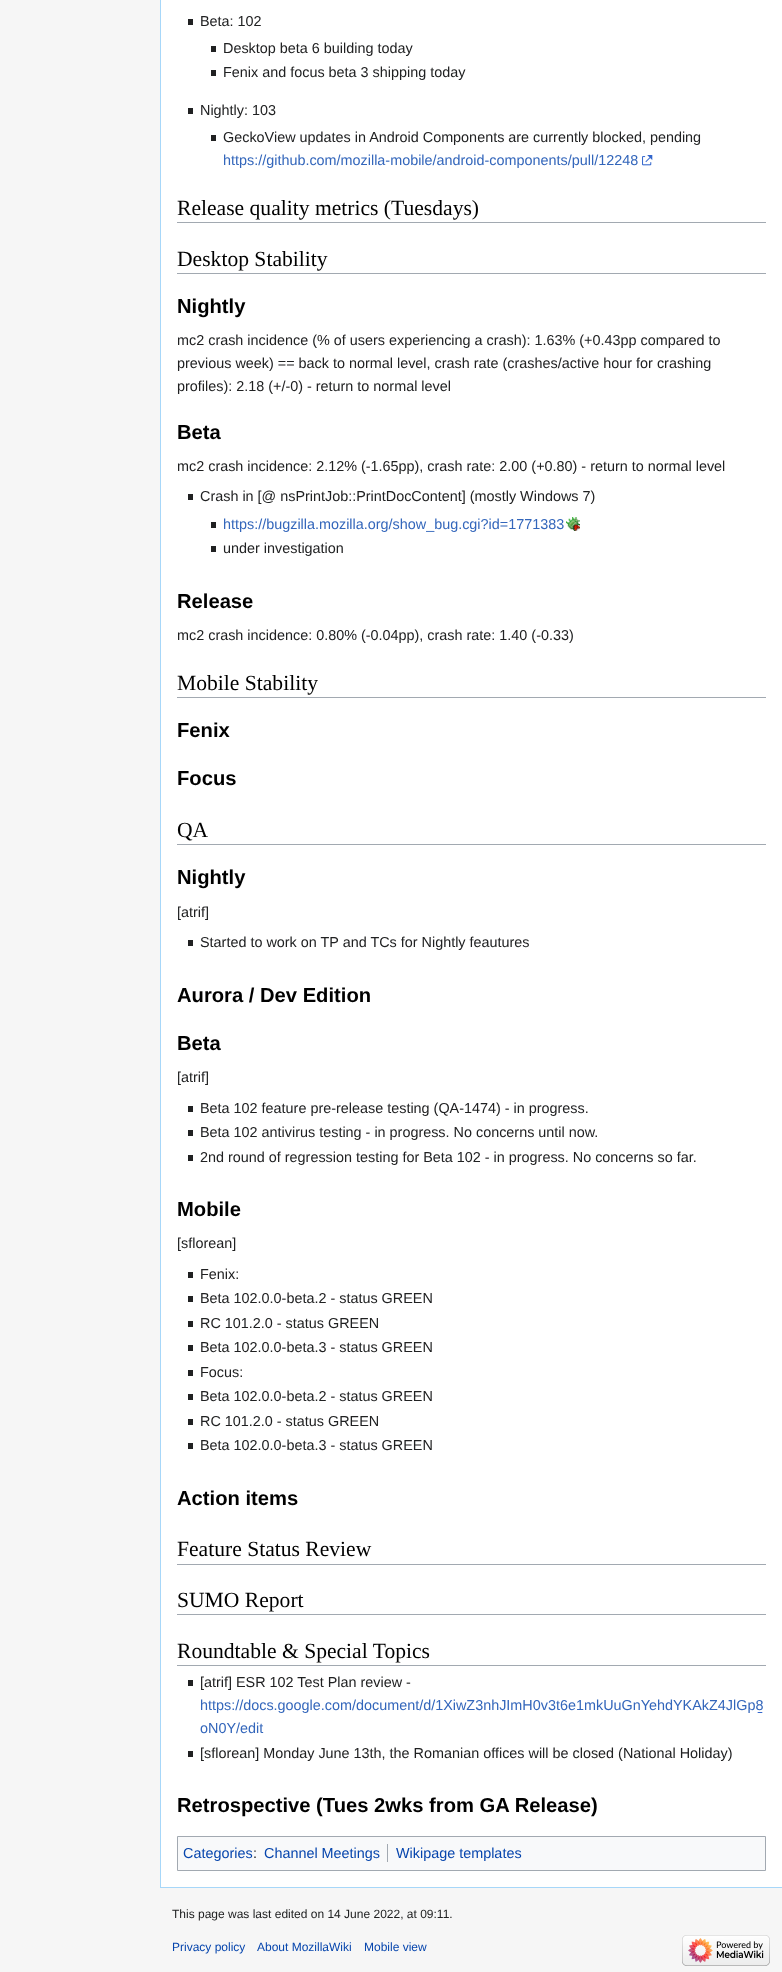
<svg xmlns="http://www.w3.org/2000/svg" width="782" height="1972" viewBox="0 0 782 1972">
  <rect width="100%" height="100%" fill="#f6f6f6"/>
  <path d="M161 0h621v1887H161z" fill="#fff"/>
  <path d="M160 1887h622v1H160z" fill="#a7d7f9"/>
  <path d="M160 0h1v1888H160z" fill="#a7d7f9"/>
  <path d="M188 19h5v6H188z" fill="#202122"/>
  <path d="M211 46h5v6H211z" fill="#202122"/>
  <path d="M211 70h5v6H211z" fill="#202122"/>
  <path d="M188 108h5v6H188z" fill="#202122"/>
  <path d="M211 135h5v6H211z" fill="#202122"/>
  <image x="642" y="155" width="11" height="11" href="img/1.png"/>
  <path d="M177 222h589v1H177z" fill="#a2a9b1"/>
  <path d="M177 273h589v1H177z" fill="#a2a9b1"/>
  <path d="M188 494h5v6H188z" fill="#202122"/>
  <path d="M211 522h5v6H211z" fill="#202122"/>
  <image x="566" y="517" width="14" height="14" href="img/2.png"/>
  <path d="M211 546h5v6H211z" fill="#202122"/>
  <path d="M177 697h589v1H177z" fill="#a2a9b1"/>
  <path d="M177 844h589v1H177z" fill="#a2a9b1"/>
  <path d="M188 940h5v6H188z" fill="#202122"/>
  <path d="M188 1106h5v6H188z" fill="#202122"/>
  <path d="M188 1130h5v6H188z" fill="#202122"/>
  <path d="M188 1155h5v6H188z" fill="#202122"/>
  <path d="M188 1272h5v6H188z" fill="#202122"/>
  <path d="M188 1296h5v6H188z" fill="#202122"/>
  <path d="M188 1321h5v6H188z" fill="#202122"/>
  <path d="M188 1345h5v6H188z" fill="#202122"/>
  <path d="M188 1370h5v6H188z" fill="#202122"/>
  <path d="M188 1394h5v6H188z" fill="#202122"/>
  <path d="M188 1419h5v6H188z" fill="#202122"/>
  <path d="M188 1443h5v6H188z" fill="#202122"/>
  <path d="M177 1564h589v1H177z" fill="#a2a9b1"/>
  <path d="M177 1614h589v1H177z" fill="#a2a9b1"/>
  <path d="M177 1665h589v1H177z" fill="#a2a9b1"/>
  <path d="M188 1680h5v6H188z" fill="#202122"/>
  <image x="757" y="1712" width="6" height="1" href="img/3.png"/>
  <path d="M188 1751h5v6H188z" fill="#202122"/>
  <path d="M177.5 1836.5h588v34H177.5z" fill="#f8f9fa" stroke="#a2a9b1"/>
  <path d="M387 1844h1v18H387z" fill="#a2a9b1"/>
  <image x="682" y="1935" width="88" height="31" href="img/4.png"/>
  <g font-family="Liberation Sans" font-size="14.4" fill="#202122">
    <text x="200" y="26">Beta: 102</text>
    <text x="223" y="53">Desktop beta 6 building today</text>
    <text x="223" y="77">Fenix and focus beta 3 shipping today</text>
    <text x="200" y="115">Nightly: 103</text>
    <text x="223" y="142">GeckoView updates in Android Components are currently blocked, pending</text>
  </g>
  <text x="223" y="165" font-family="Liberation Sans" font-size="14.4" fill="#36b">https://github.com/mozilla-mobile/android-components/pull/12248</text>
  <g font-family="Liberation Serif" font-size="21.6" fill="#000">
    <text x="177" y="215">Release quality metrics (Tuesdays)</text>
    <text x="177" y="266">Desktop Stability</text>
  </g>
  <text x="177" y="313" font-family="Liberation Sans" font-size="20.2" font-weight="bold" fill="#000">Nightly</text>
  <g font-family="Liberation Sans" font-size="14.4" fill="#202122">
    <text x="177" y="345">mc2 crash incidence (% of users experiencing a crash): 1.63% (+0.43pp compared to</text>
    <text x="177" y="368">previous week) == back to normal level, crash rate (crashes/active hour for crashing</text>
    <text x="177" y="391">profiles): 2.18 (+/-0) - return to normal level</text>
  </g>
  <text x="177" y="439" font-family="Liberation Sans" font-size="20.2" font-weight="bold" fill="#000">Beta</text>
  <g font-family="Liberation Sans" font-size="14.4" fill="#202122">
    <text x="177" y="471">mc2 crash incidence: 2.12% (-1.65pp), crash rate: 2.00 (+0.80) - return to normal level</text>
    <text x="200" y="501">Crash in [@ nsPrintJob::PrintDocContent] (mostly Windows 7)</text>
  </g>
  <text x="223" y="529" font-family="Liberation Sans" font-size="14.4" fill="#36b">https://bugzilla.mozilla.org/show_bug.cgi?id=1771383</text>
  <text x="223" y="553" font-family="Liberation Sans" font-size="14.4" fill="#202122">under investigation</text>
  <text x="177" y="608" font-family="Liberation Sans" font-size="20.2" font-weight="bold" fill="#000">Release</text>
  <text x="177" y="640" font-family="Liberation Sans" font-size="14.4" fill="#202122">mc2 crash incidence: 0.80% (-0.04pp), crash rate: 1.40 (-0.33)</text>
  <text x="177" y="690" font-family="Liberation Serif" font-size="21.6" fill="#000">Mobile Stability</text>
  <g font-family="Liberation Sans" font-size="20.2" font-weight="bold" fill="#000">
    <text x="177" y="737">Fenix</text>
    <text x="177" y="785">Focus</text>
  </g>
  <text x="177" y="837" font-family="Liberation Serif" font-size="21.6" fill="#000">QA</text>
  <text x="177" y="884" font-family="Liberation Sans" font-size="20.2" font-weight="bold" fill="#000">Nightly</text>
  <g font-family="Liberation Sans" font-size="14.4" fill="#202122">
    <text x="177" y="917">[atrif]</text>
    <text x="200" y="947">Started to work on TP and TCs for Nightly feautures</text>
  </g>
  <g font-family="Liberation Sans" font-size="20.2" font-weight="bold" fill="#000">
    <text x="177" y="1002">Aurora / Dev Edition</text>
    <text x="177" y="1050">Beta</text>
  </g>
  <g font-family="Liberation Sans" font-size="14.4" fill="#202122">
    <text x="177" y="1082">[atrif]</text>
    <text x="200" y="1113">Beta 102 feature pre-release testing (QA-1474) - in progress.</text>
    <text x="200" y="1137">Beta 102 antivirus testing - in progress. No concerns until now.</text>
    <text x="200" y="1162">2nd round of regression testing for Beta 102 - in progress. No concerns so far.</text>
  </g>
  <text x="177" y="1216" font-family="Liberation Sans" font-size="20.2" font-weight="bold" fill="#000">Mobile</text>
  <g font-family="Liberation Sans" font-size="14.4" fill="#202122">
    <text x="177" y="1248">[sflorean]</text>
    <text x="200" y="1279">Fenix:</text>
    <text x="200" y="1303">Beta 102.0.0-beta.2 - status GREEN</text>
    <text x="200" y="1328">RC 101.2.0 - status GREEN</text>
    <text x="200" y="1352">Beta 102.0.0-beta.3 - status GREEN</text>
    <text x="200" y="1377">Focus:</text>
    <text x="200" y="1401">Beta 102.0.0-beta.2 - status GREEN</text>
    <text x="200" y="1426">RC 101.2.0 - status GREEN</text>
    <text x="200" y="1450">Beta 102.0.0-beta.3 - status GREEN</text>
  </g>
  <text x="177" y="1505" font-family="Liberation Sans" font-size="20.2" font-weight="bold" fill="#000">Action items</text>
  <g font-family="Liberation Serif" font-size="21.6" fill="#000">
    <text x="177" y="1556">Feature Status Review</text>
    <text x="177" y="1607">SUMO Report</text>
    <text x="177" y="1658">Roundtable &amp; Special Topics</text>
  </g>
  <text x="200" y="1687" font-family="Liberation Sans" font-size="14.4" fill="#202122">[atrif] ESR 102 Test Plan review -</text>
  <g font-family="Liberation Sans" font-size="14.4" fill="#36b">
    <text x="200" y="1710">https://docs.google.com/document/d/1XiwZ3nhJImH0v3t6e1mkUuGnYehdYKAkZ4JlGp8</text>
    <text x="200" y="1733">oN0Y/edit</text>
  </g>
  <text x="200" y="1758" font-family="Liberation Sans" font-size="14.4" fill="#202122">[sflorean] Monday June 13th, the Romanian offices will be closed (National Holiday)</text>
  <text x="177" y="1812" font-family="Liberation Sans" font-size="20.2" font-weight="bold" fill="#000">Retrospective (Tues 2wks from GA Release)</text>
  <text x="183" y="1858" font-family="Liberation Sans" font-size="14.4" fill="#0645ad">Categories</text>
  <text x="253" y="1858" font-family="Liberation Sans" font-size="14.4" fill="#202122">:</text>
  <g font-family="Liberation Sans" font-size="14.4" fill="#0645ad">
    <text x="264" y="1858">Channel Meetings</text>
    <text x="396" y="1858">Wikipage templates</text>
  </g>
  <text x="172" y="1918" font-family="Liberation Sans" font-size="12" fill="#202122">This page was last edited on 14 June 2022, at 09:11.</text>
  <g font-family="Liberation Sans" font-size="12" fill="#0645ad">
    <text x="172" y="1951">Privacy policy</text>
    <text x="257" y="1951">About MozillaWiki</text>
    <text x="364" y="1951">Mobile view</text>
  </g>
</svg>
